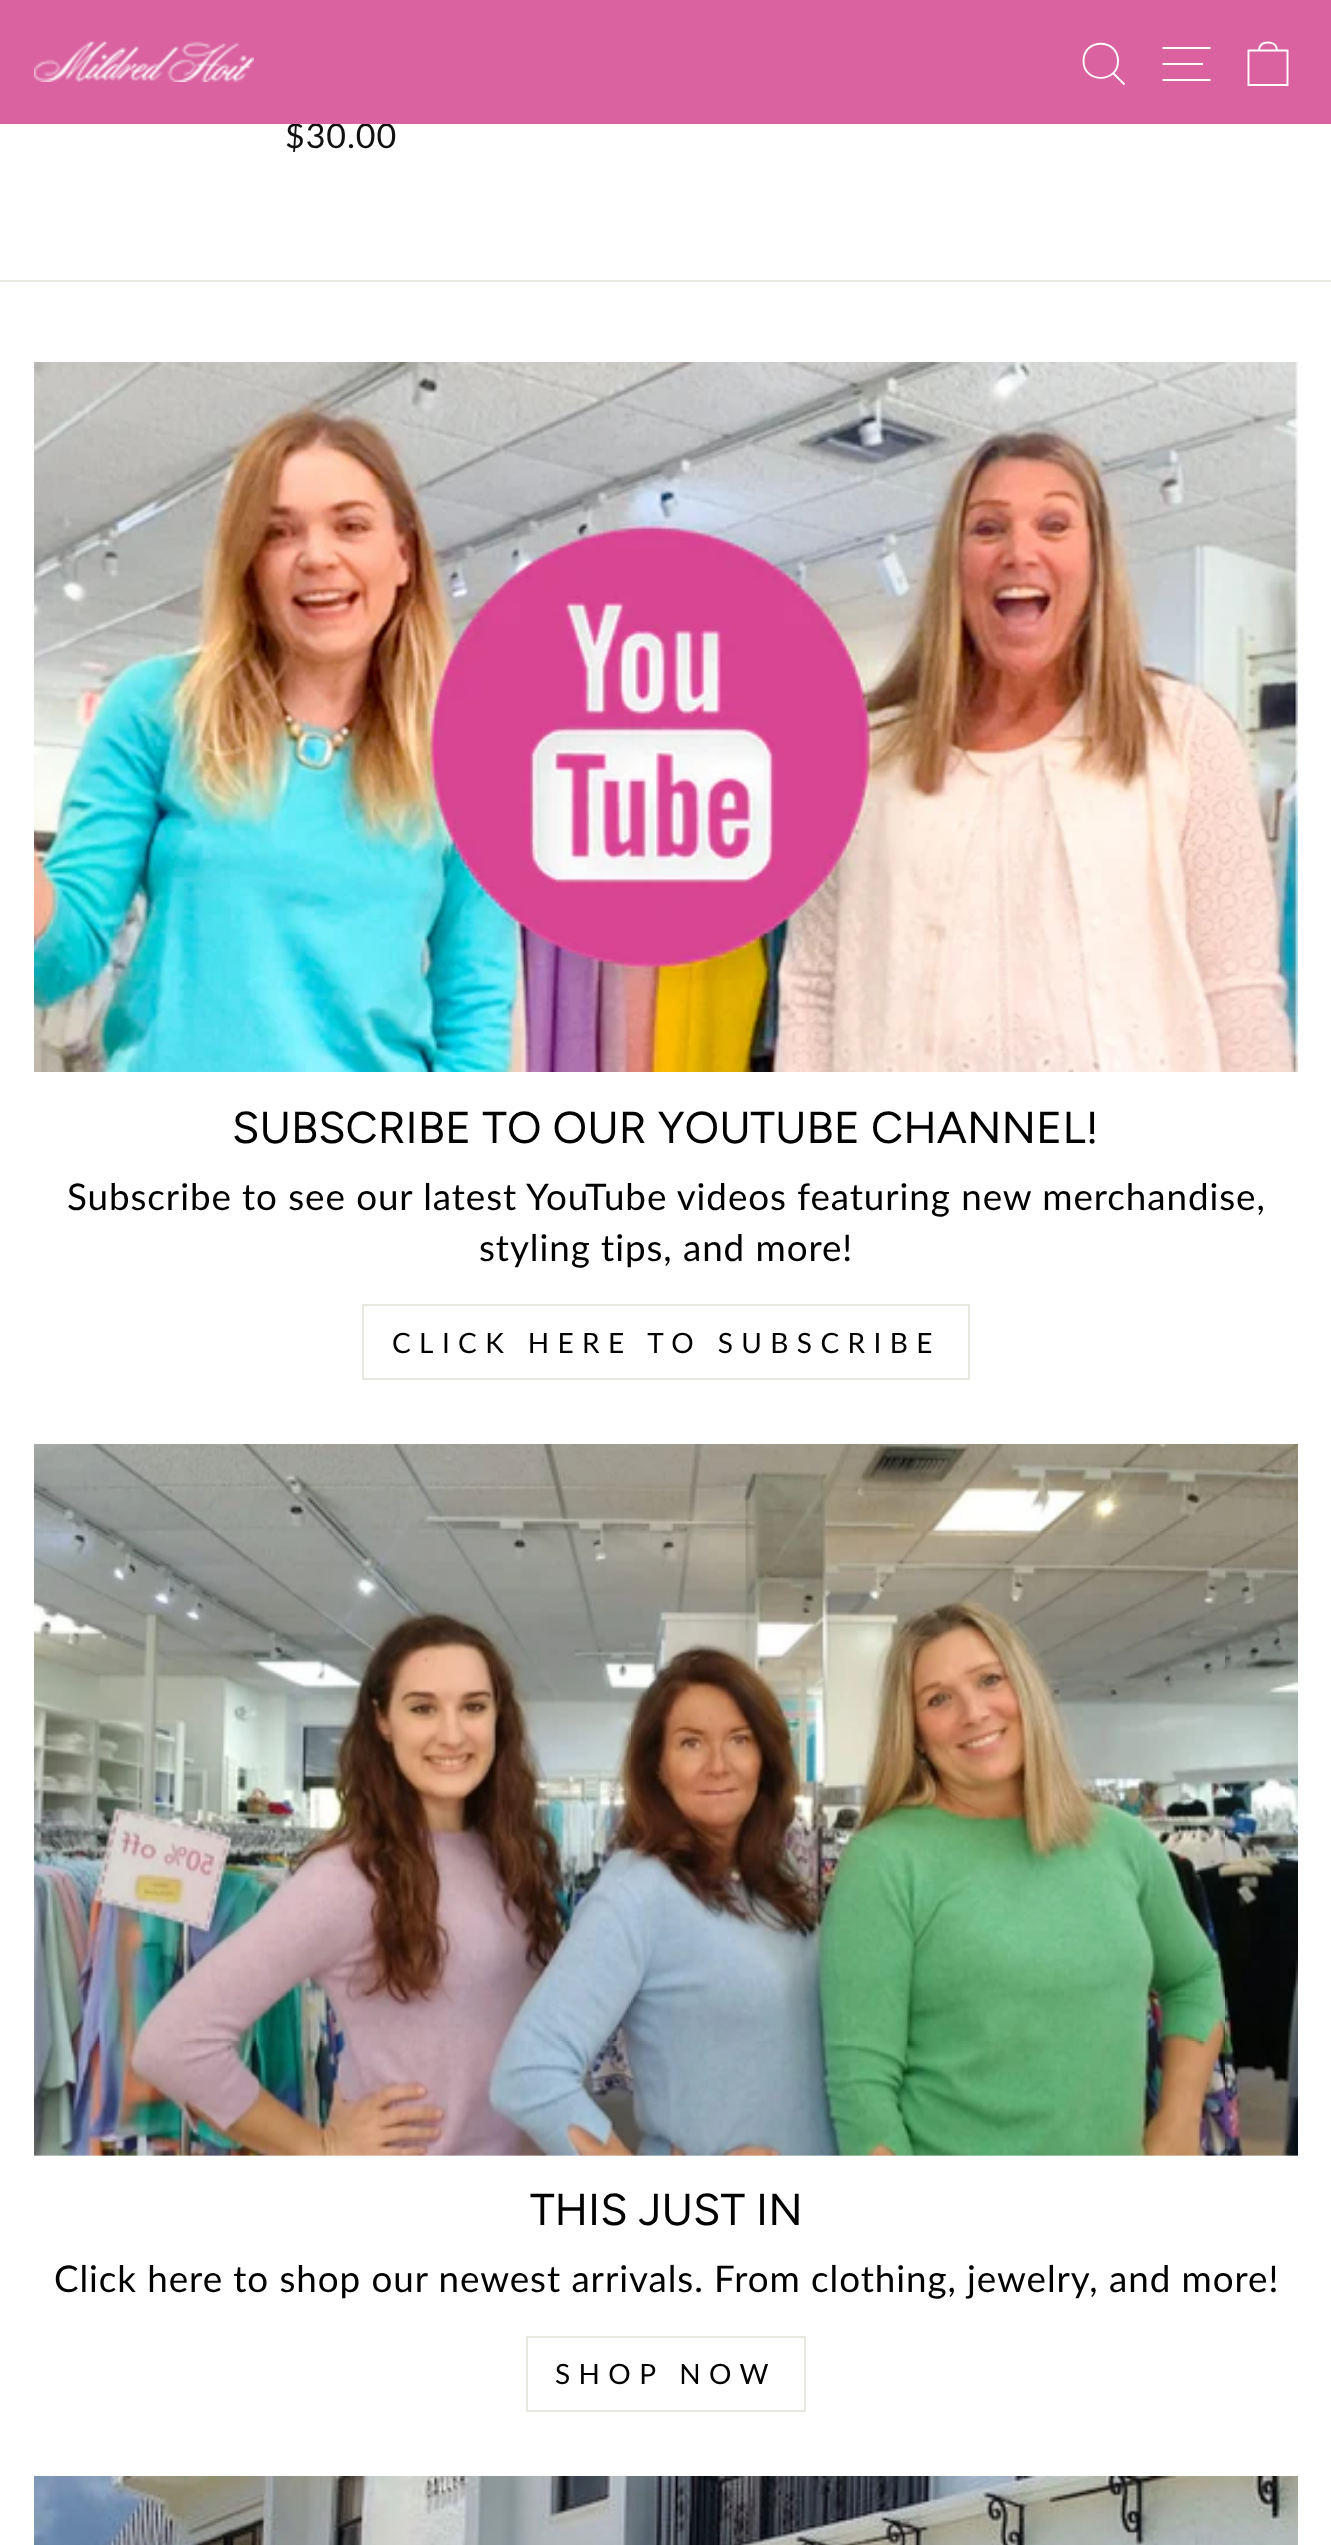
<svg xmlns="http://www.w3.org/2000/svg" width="1331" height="2545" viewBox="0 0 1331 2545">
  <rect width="100%" height="100%" fill="#fff"/>
  <path d="M0 280h1331v2H0z" fill="#e8e8e1"/>
  <image x="34" y="362" width="1264" height="710" href="img/2.png"/>
  <path d="M363 1305h606v74H363z" fill="none" stroke="#e8e8e1" stroke-width="2"/>
  <image x="34" y="1444" width="1264" height="712" href="img/3.png"/>
  <path d="M527 2337h278v74H527z" fill="none" stroke="#e8e8e1" stroke-width="2"/>
  <image x="34" y="2476" width="1264" height="69" href="img/4.png"/>
  <text x="285" y="148" font-family="Lato" font-size="34" letter-spacing="0.92" fill="#111">$30.00</text>
  <path d="M0 0h1331v124H0z" fill="#da62a0"/>
  <image x="34" y="41" width="220" height="41" href="img/1.png"/>
  <path d="M1248.5 50.5H1287.5V85H1248.5ZM1259 51C1259 44 1263 42.5 1268 42.5C1273 42.5 1277 44 1277 51" fill="none" stroke="#fff" stroke-width="1.9"/>
  <path d="M1162.5 48H1210.5M1162.5 64H1203M1162.5 80H1210.5" fill="none" stroke="#fff" stroke-width="1.9"/>
  <path d="M1118 61C1118 83.5 1083.5 83.5 1083.5 61C1083.5 38 1118 38 1118 61ZM1124.5 84.5L1113.5 73.5" fill="none" stroke="#fff" stroke-width="1.9"/>
  <text x="232" y="1143" font-family="Figtree" font-size="44.6" fill="#000">SUBSCRIBE TO OUR YOUTUBE CHANNEL!</text>
  <g font-family="Lato" font-size="36.8" letter-spacing="0.92" fill="#000">
    <text x="67" y="1210">Subscribe to see our latest YouTube videos featuring new merchandise,</text>
    <text x="479" y="1261">styling tips, and more!</text>
  </g>
  <text x="392" y="1353" font-family="Lato" font-size="28" letter-spacing="8.4" fill="#000">CLICK HERE TO SUBSCRIBE</text>
  <text x="530" y="2225" font-family="Figtree" font-size="44.6" fill="#000">THIS JUST IN</text>
  <text x="54" y="2292" font-family="Lato" font-size="36.8" letter-spacing="0.92" fill="#000">Click here to shop our newest arrivals. From clothing, jewelry, and more!</text>
  <text x="555" y="2384" font-family="Lato" font-size="28" letter-spacing="8.4" fill="#000">SHOP NOW</text>
</svg>
